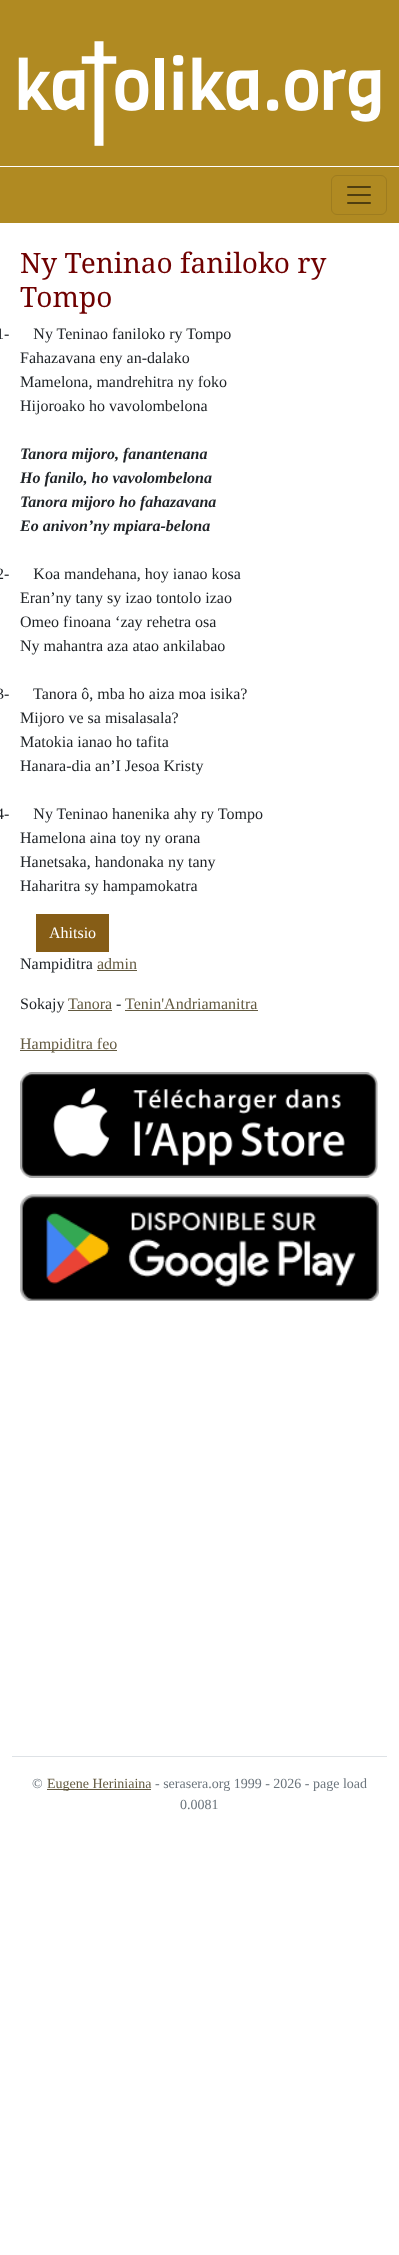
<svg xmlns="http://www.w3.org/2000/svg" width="399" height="2255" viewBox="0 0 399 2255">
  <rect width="100%" height="100%" fill="#fff"/>
  <path d="M0 0h399v166H0z" fill="#b08a22"/>
  <image x="18" y="41" width="363" height="105" href="img/1.png"/>
  <path d="M0 167h399v56H0z" fill="#b08a22"/>
  <rect x="331.5" y="175.5" width="55" height="39" rx="5.5" fill="none" stroke="#9e7c1f"/>
  <image x="347" y="186" width="24" height="18" href="img/2.png"/>
  <path d="M36 914h73v38H36z" fill="#865d16"/>
  <path d="M97 970h40v1H97z" fill="#635a41"/>
  <path d="M68 1010h44v1H68z" fill="#635a41"/>
  <path d="M125 1010h133v1H125z" fill="#635a41"/>
  <path d="M20 1050h97v1H20z" fill="#635a41"/>
  <image x="20" y="1072" width="358" height="106" href="img/3.png"/>
  <image x="20" y="1194" width="359" height="107" href="img/4.png"/>
  <path d="M12 1756h375v1H12z" fill="#dee2e6"/>
  <path d="M47 1789h104v1H47z" fill="#635a41"/>
  <g font-family="Droid Serif" font-size="28" fill="#6f0000">
    <text x="20" y="273">Ny Teninao faniloko ry</text>
    <text x="20" y="307">Tompo</text>
  </g>
  <g font-family="Liberation Serif" font-size="16" fill="#212529">
    <text x="-4" y="339" xml:space="preserve">1-      Ny Teninao faniloko ry Tompo</text>
    <text x="20" y="363">Fahazavana eny an-dalako</text>
    <text x="20" y="387">Mamelona, mandrehitra ny foko</text>
    <text x="20" y="411">Hijoroako ho vavolombelona</text>
  </g>
  <g font-family="Liberation Serif" font-size="16" font-weight="bold" font-style="italic" fill="#212529">
    <text x="20" y="459">Tanora mijoro, fanantenana</text>
    <text x="20" y="483">Ho fanilo, ho vavolombelona</text>
    <text x="20" y="507">Tanora mijoro ho fahazavana</text>
    <text x="20" y="531">Eo anivon’ny mpiara-belona</text>
  </g>
  <g font-family="Liberation Serif" font-size="16" fill="#212529">
    <text x="-4" y="579" xml:space="preserve">2-      Koa mandehana, hoy ianao kosa</text>
    <text x="20" y="603">Eran’ny tany sy izao tontolo izao</text>
    <text x="20" y="627">Omeo finoana ‘zay rehetra osa</text>
    <text x="20" y="651">Ny mahantra aza atao ankilabao</text>
    <text x="-4" y="699" xml:space="preserve">3-      Tanora ô, mba ho aiza moa isika?</text>
    <text x="20" y="723">Mijoro ve sa misalasala?</text>
    <text x="20" y="747">Matokia ianao ho tafita</text>
    <text x="20" y="771">Hanara-dia an’I Jesoa Kristy</text>
    <text x="-4" y="819" xml:space="preserve">4-      Ny Teninao hanenika ahy ry Tompo</text>
    <text x="20" y="843">Hamelona aina toy ny orana</text>
    <text x="20" y="867">Hanetsaka, handonaka ny tany</text>
    <text x="20" y="891">Haharitra sy hampamokatra</text>
  </g>
  <text x="49" y="938" font-family="Liberation Serif" font-size="16" fill="#fff">Ahitsio</text>
  <text x="20" y="969" font-family="Liberation Serif" font-size="16" fill="#212529">Nampiditra</text>
  <text x="97" y="969" font-family="Liberation Serif" font-size="16" fill="#635a41">admin</text>
  <text x="20" y="1009" font-family="Liberation Serif" font-size="16" fill="#212529">Sokajy</text>
  <text x="68" y="1009" font-family="Liberation Serif" font-size="16" fill="#635a41">Tanora</text>
  <text x="116" y="1009" font-family="Liberation Serif" font-size="16" fill="#212529">-</text>
  <g font-family="Liberation Serif" font-size="16" fill="#635a41">
    <text x="125" y="1009">Tenin'Andriamanitra</text>
    <text x="20" y="1049">Hampiditra feo</text>
  </g>
  <text x="32" y="1788" font-family="Liberation Serif" font-size="14" fill="#6c757d">©</text>
  <text x="47" y="1788" font-family="Liberation Serif" font-size="14" fill="#635a41">Eugene Heriniaina</text>
  <g font-family="Liberation Serif" font-size="14" fill="#6c757d">
    <text x="155" y="1788">- serasera.org 1999 - 2026 - page load</text>
    <text x="180" y="1809">0.0081</text>
  </g>
</svg>
